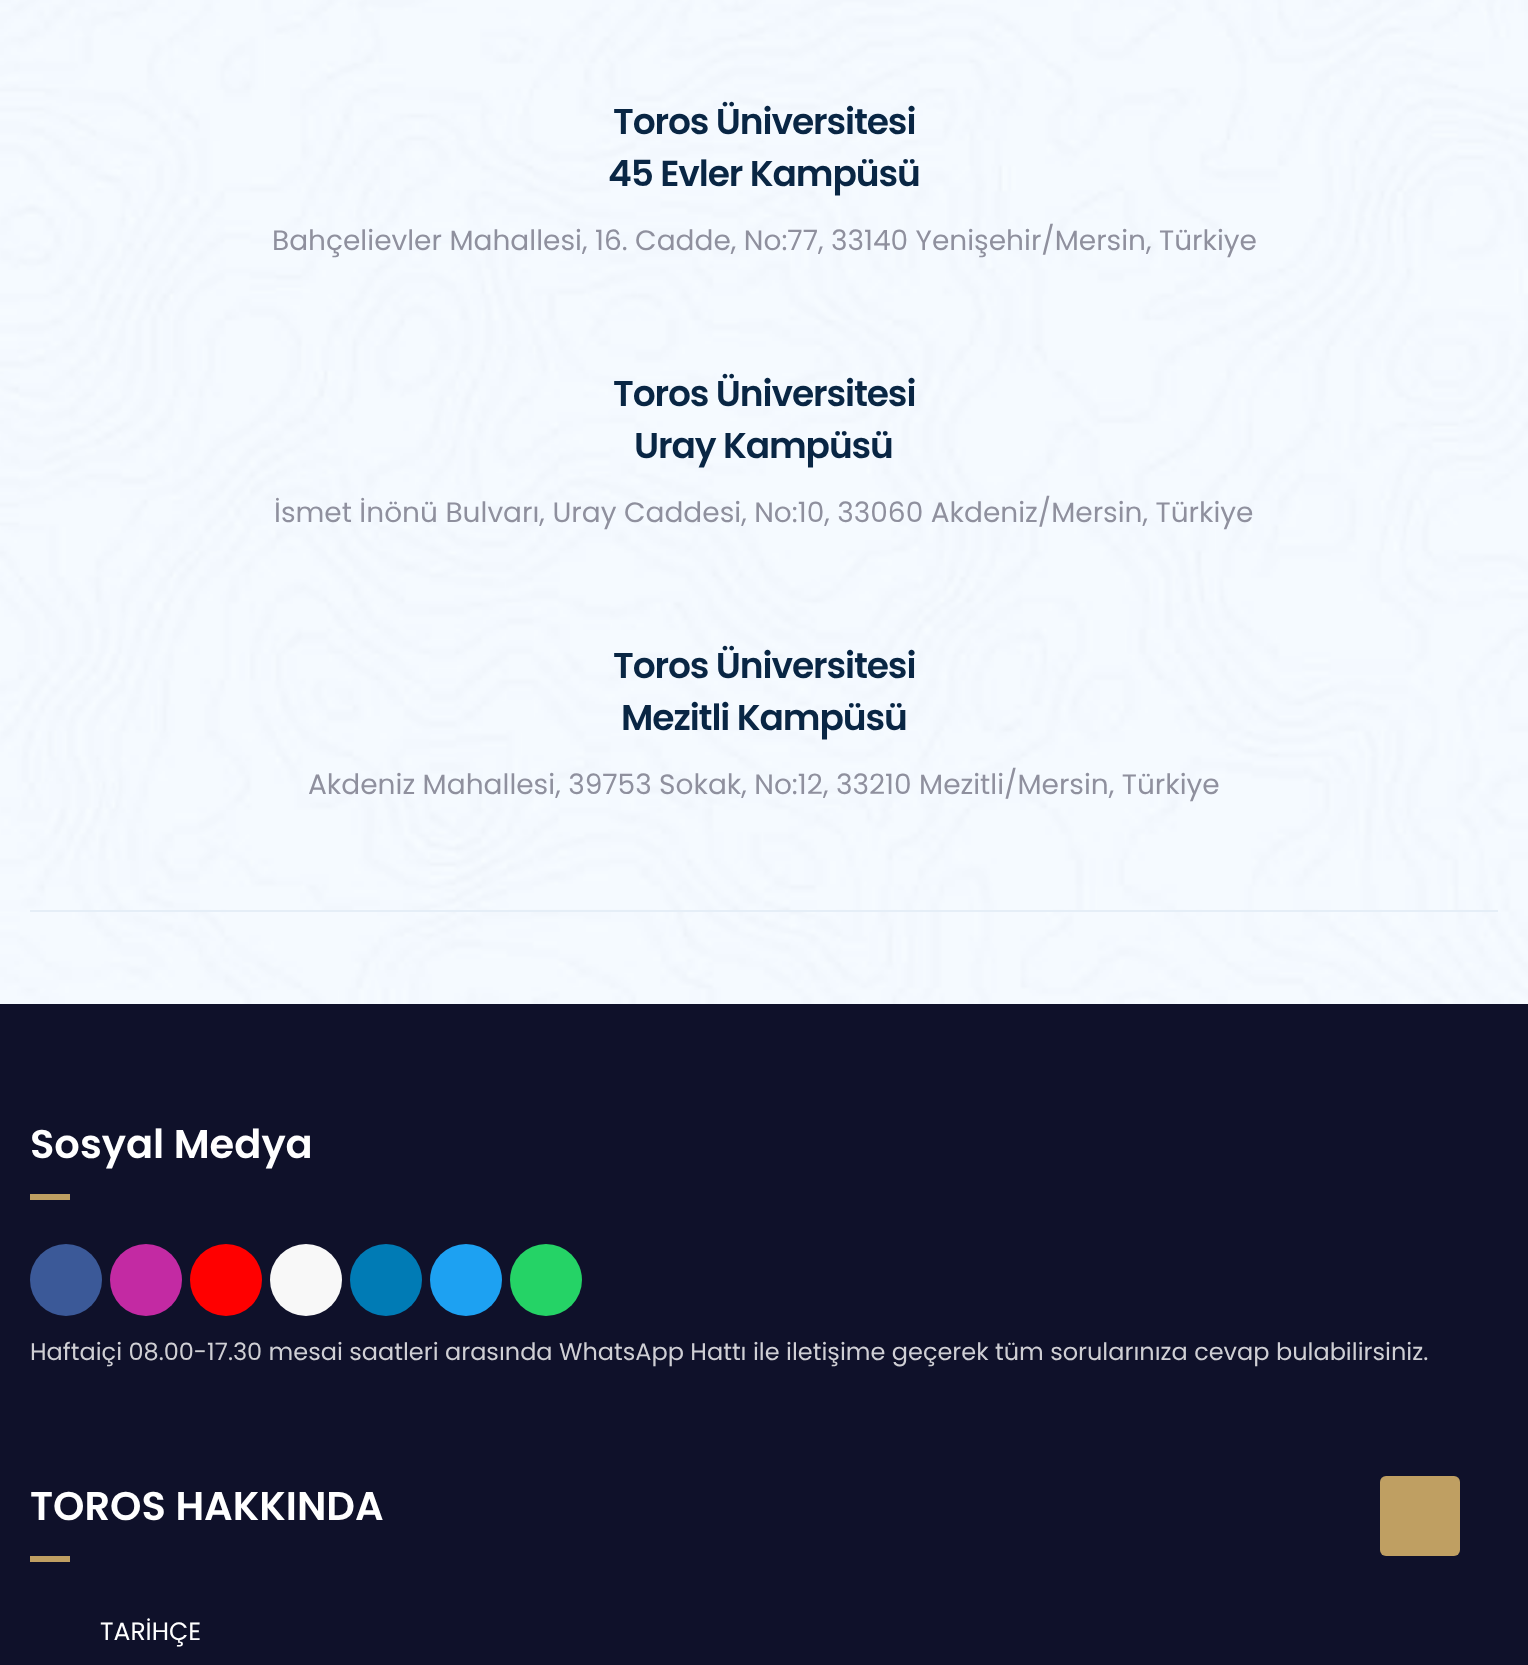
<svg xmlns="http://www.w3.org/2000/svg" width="1528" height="1665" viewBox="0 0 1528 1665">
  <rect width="100%" height="100%" fill="#0f112a"/>
  <image x="0" y="0" width="1528" height="1004" href="img/1.png"/>
  <path d="M30 910h1468v2H30z" fill="#e5eef7"/>
  <path d="M30 1194h40v6H30z" fill="#bf9f62"/>
  <circle cx="66" cy="1280" r="36" fill="#3b5998"/>
  <circle cx="146" cy="1280" r="36" fill="#c32aa3"/>
  <circle cx="226" cy="1280" r="36" fill="#f00"/>
  <circle cx="306" cy="1280" r="36" fill="#f8f8f8"/>
  <circle cx="386" cy="1280" r="36" fill="#007bb5"/>
  <circle cx="466" cy="1280" r="36" fill="#1da1f2"/>
  <circle cx="546" cy="1280" r="36" fill="#25d366"/>
  <path d="M30 1556h40v6H30z" fill="#bf9f62"/>
  <rect x="1380" y="1476" width="80" height="80" rx="6" fill="#bf9f62"/>
  <g font-family="Poppins" font-size="36" font-weight="600" letter-spacing="-1.1" fill="#092644">
    <text x="613" y="134">Toros Üniversitesi</text>
    <text x="608" y="186">45 Evler Kampüsü</text>
  </g>
  <text x="272" y="250" font-family="Poppins" font-size="28" fill="#8f909e">Bahçelievler Mahallesi, 16. Cadde, No:77, 33140 Yenişehir/Mersin, Türkiye</text>
  <g font-family="Poppins" font-size="36" font-weight="600" letter-spacing="-1.1" fill="#092644">
    <text x="613" y="406">Toros Üniversitesi</text>
    <text x="634" y="458">Uray Kampüsü</text>
  </g>
  <text x="274" y="522" font-family="Poppins" font-size="28" fill="#8f909e">İsmet İnönü Bulvarı, Uray Caddesi, No:10, 33060 Akdeniz/Mersin, Türkiye</text>
  <g font-family="Poppins" font-size="36" font-weight="600" letter-spacing="-1.1" fill="#092644">
    <text x="613" y="678">Toros Üniversitesi</text>
    <text x="621" y="730">Mezitli Kampüsü</text>
  </g>
  <text x="308" y="794" font-family="Poppins" font-size="28" fill="#8f909e">Akdeniz Mahallesi, 39753 Sokak, No:12, 33210 Mezitli/Mersin, Türkiye</text>
  <text x="30" y="1158" font-family="Poppins" font-size="40" font-weight="600" fill="#fff">Sosyal Medya</text>
  <text x="30" y="1360" font-family="Poppins" font-size="24" fill="#cfcfd4">Haftaiçi 08.00-17.30 mesai saatleri arasında WhatsApp Hattı ile iletişime geçerek tüm sorularınıza cevap bulabilirsiniz.</text>
  <text x="30" y="1520" font-family="Poppins" font-size="40" font-weight="600" fill="#fff">TOROS HAKKINDA</text>
  <text x="100" y="1640" font-family="Poppins" font-size="25" fill="#fff">TARİHÇE</text>
</svg>
